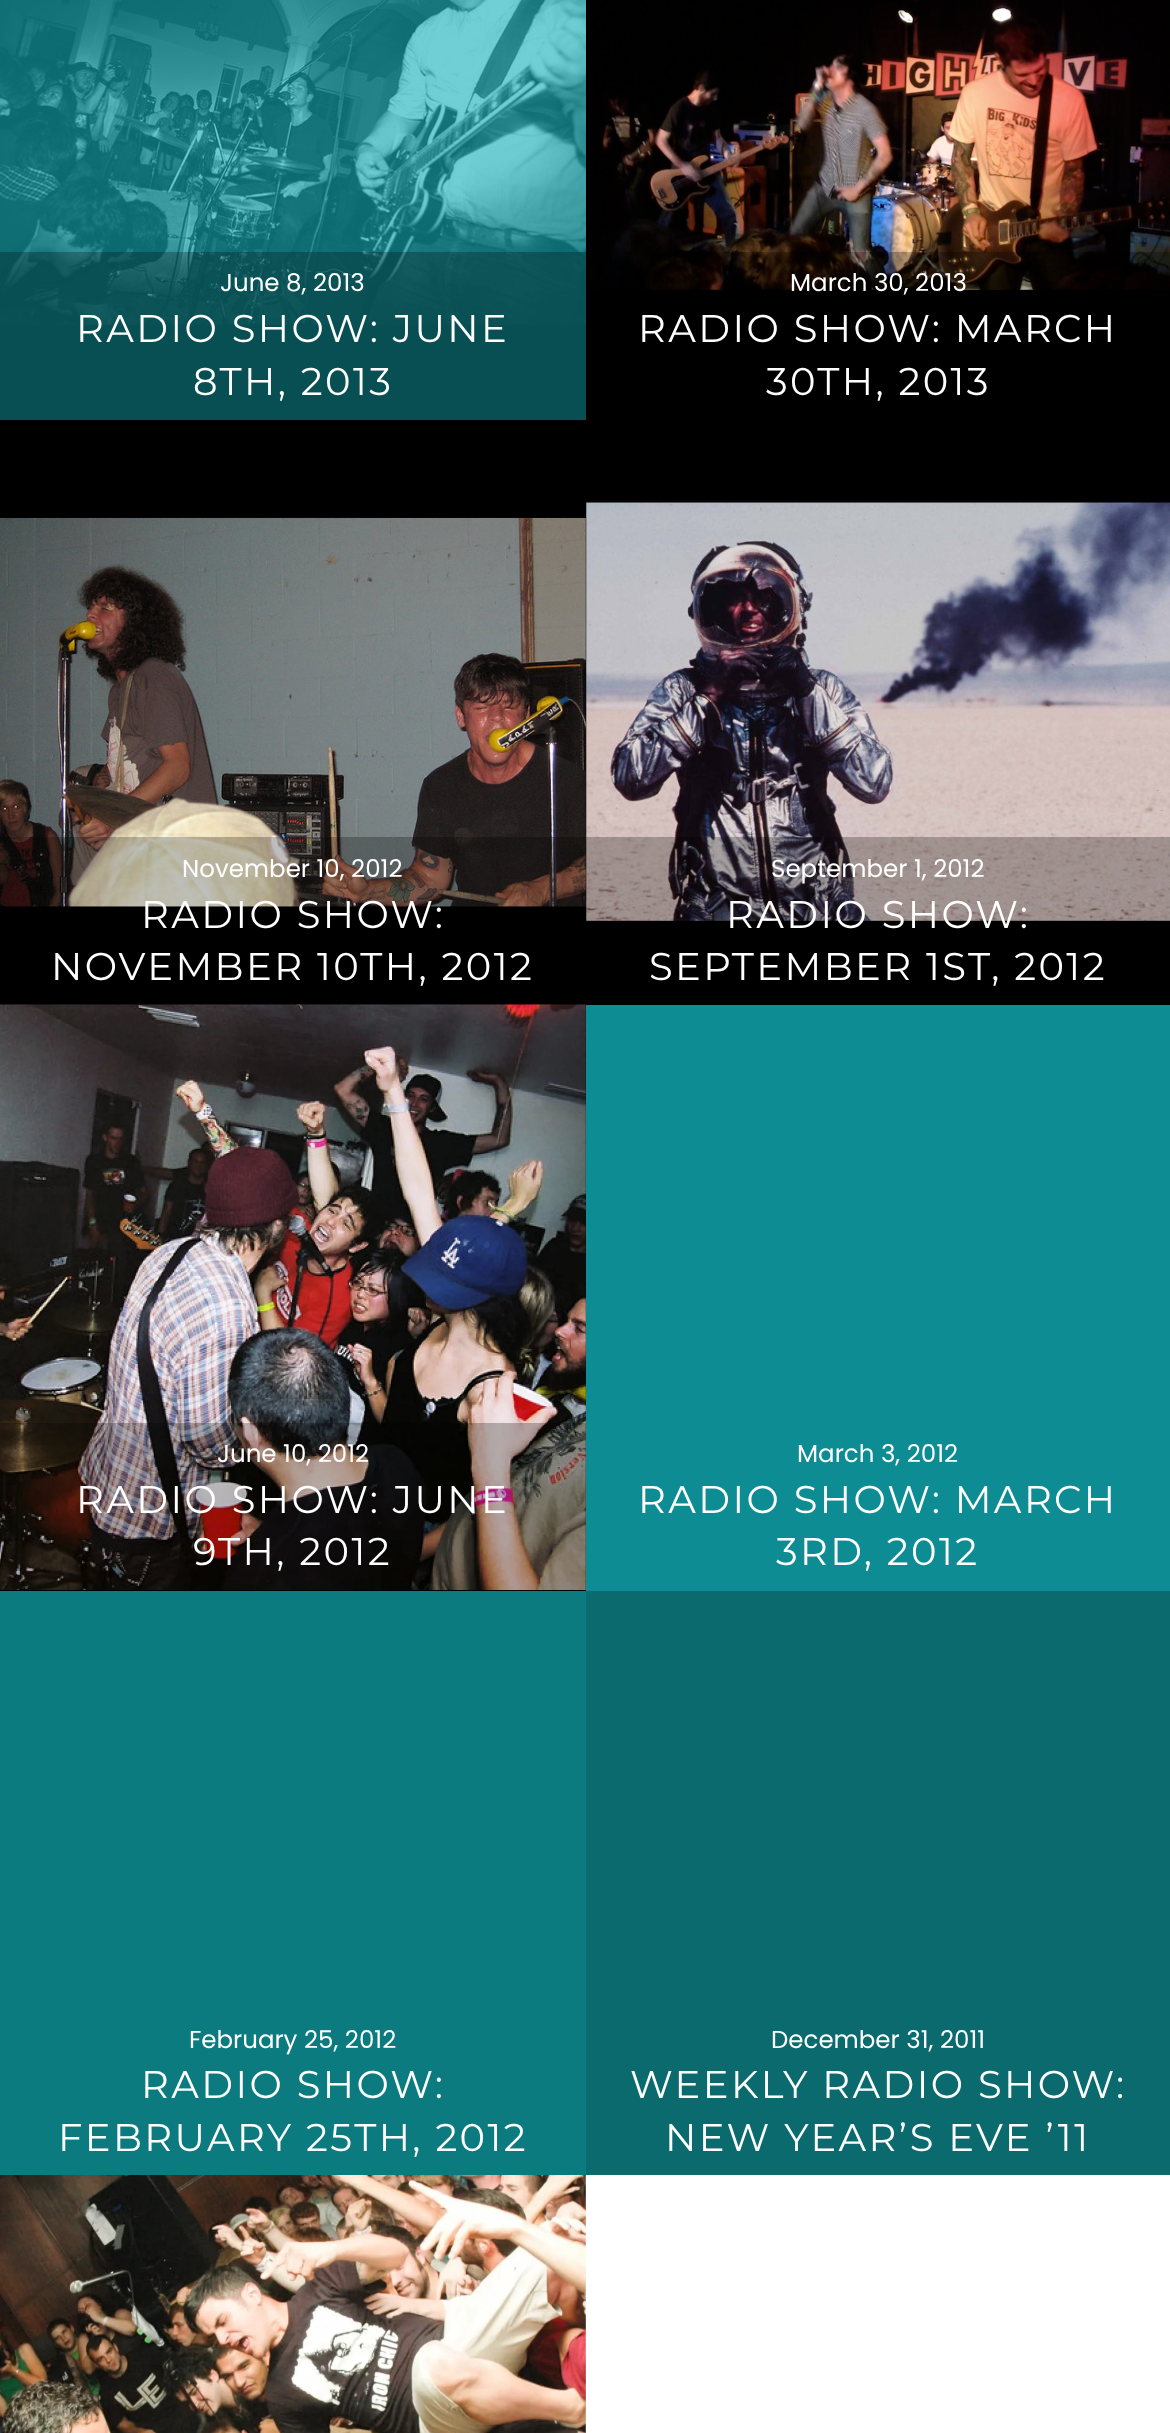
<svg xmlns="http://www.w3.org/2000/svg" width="1170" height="2433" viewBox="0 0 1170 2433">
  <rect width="100%" height="100%" fill="#fff"/>
  <path d="M0 324h586v96H0z" fill="#0a6a6e"/>
  <image x="0" y="0" width="586" height="325" href="img/1.png"/>
  <path d="M0 252h586v168H0z" fill="#00000040"/>
  <path d="M586 0h584v420H586z" fill="#000"/>
  <image x="589" y="0" width="581" height="290" href="img/2.png"/>
  <path d="M620 252h550v38H620z" fill="#00000040"/>
  <path d="M0 420h1170v585H0z" fill="#000"/>
  <image x="0" y="517" width="586" height="390" href="img/3.png"/>
  <path d="M0 1005h586v586H0z" fill="#000"/>
  <image x="0" y="1004" width="586" height="587" href="img/5.png"/>
  <path d="M0 837h586v168H0z" fill="#00000040"/>
  <image x="586" y="502" width="584" height="419" href="img/4.png"/>
  <path d="M586 837h584v84H586z" fill="#00000040"/>
  <path d="M0 1423h586v167H0z" fill="#00000040"/>
  <path d="M586 1005h584v586H586z" fill="#0d8d93"/>
  <path d="M0 1591h586v584H0z" fill="#0b7b80"/>
  <path d="M586 1591h584v584H586z" fill="#0a6a6e"/>
  <image x="0" y="2175" width="586" height="258" href="img/6.png"/>
  <text x="220" y="291" font-family="Poppins" font-size="24.5" fill="#fff">June 8, 2013</text>
  <g font-family="Montserrat" font-size="38.5" letter-spacing="2.4" fill="#fff">
    <text x="76" y="342">RADIO SHOW: JUNE</text>
    <text x="193" y="395">8TH, 2013</text>
  </g>
  <text x="790" y="291" font-family="Poppins" font-size="24.5" fill="#fff">March 30, 2013</text>
  <g font-family="Montserrat" font-size="38.5" letter-spacing="2.4" fill="#fff">
    <text x="638" y="342">RADIO SHOW: MARCH</text>
    <text x="766" y="395">30TH, 2013</text>
  </g>
  <text x="182" y="877" font-family="Poppins" font-size="24.5" fill="#fff">November 10, 2012</text>
  <g font-family="Montserrat" font-size="38.5" letter-spacing="2.4" fill="#fff">
    <text x="141" y="928">RADIO SHOW:</text>
    <text x="51" y="980">NOVEMBER 10TH, 2012</text>
  </g>
  <text x="771" y="877" font-family="Poppins" font-size="24.5" fill="#fff">September 1, 2012</text>
  <g font-family="Montserrat" font-size="38.5" letter-spacing="2.4" fill="#fff">
    <text x="726" y="928">RADIO SHOW:</text>
    <text x="649" y="980">SEPTEMBER 1ST, 2012</text>
  </g>
  <text x="217" y="1462" font-family="Poppins" font-size="24.5" fill="#fff">June 10, 2012</text>
  <g font-family="Montserrat" font-size="38.5" letter-spacing="2.4" fill="#fff">
    <text x="76" y="1513">RADIO SHOW: JUNE</text>
    <text x="193" y="1565">9TH, 2012</text>
  </g>
  <text x="797" y="1462" font-family="Poppins" font-size="24.5" fill="#fff">March 3, 2012</text>
  <g font-family="Montserrat" font-size="38.5" letter-spacing="2.4" fill="#fff">
    <text x="638" y="1513">RADIO SHOW: MARCH</text>
    <text x="776" y="1565">3RD, 2012</text>
  </g>
  <text x="189" y="2048" font-family="Poppins" font-size="24.5" fill="#fff">February 25, 2012</text>
  <g font-family="Montserrat" font-size="38.5" letter-spacing="2.4" fill="#fff">
    <text x="141" y="2098">RADIO SHOW:</text>
    <text x="58" y="2151">FEBRUARY 25TH, 2012</text>
  </g>
  <text x="771" y="2048" font-family="Poppins" font-size="24.5" fill="#fff">December 31, 2011</text>
  <g font-family="Montserrat" font-size="38.5" letter-spacing="2.4" fill="#fff">
    <text x="630" y="2098">WEEKLY RADIO SHOW:</text>
    <text x="665" y="2151">NEW YEAR’S EVE ’11</text>
  </g>
</svg>
